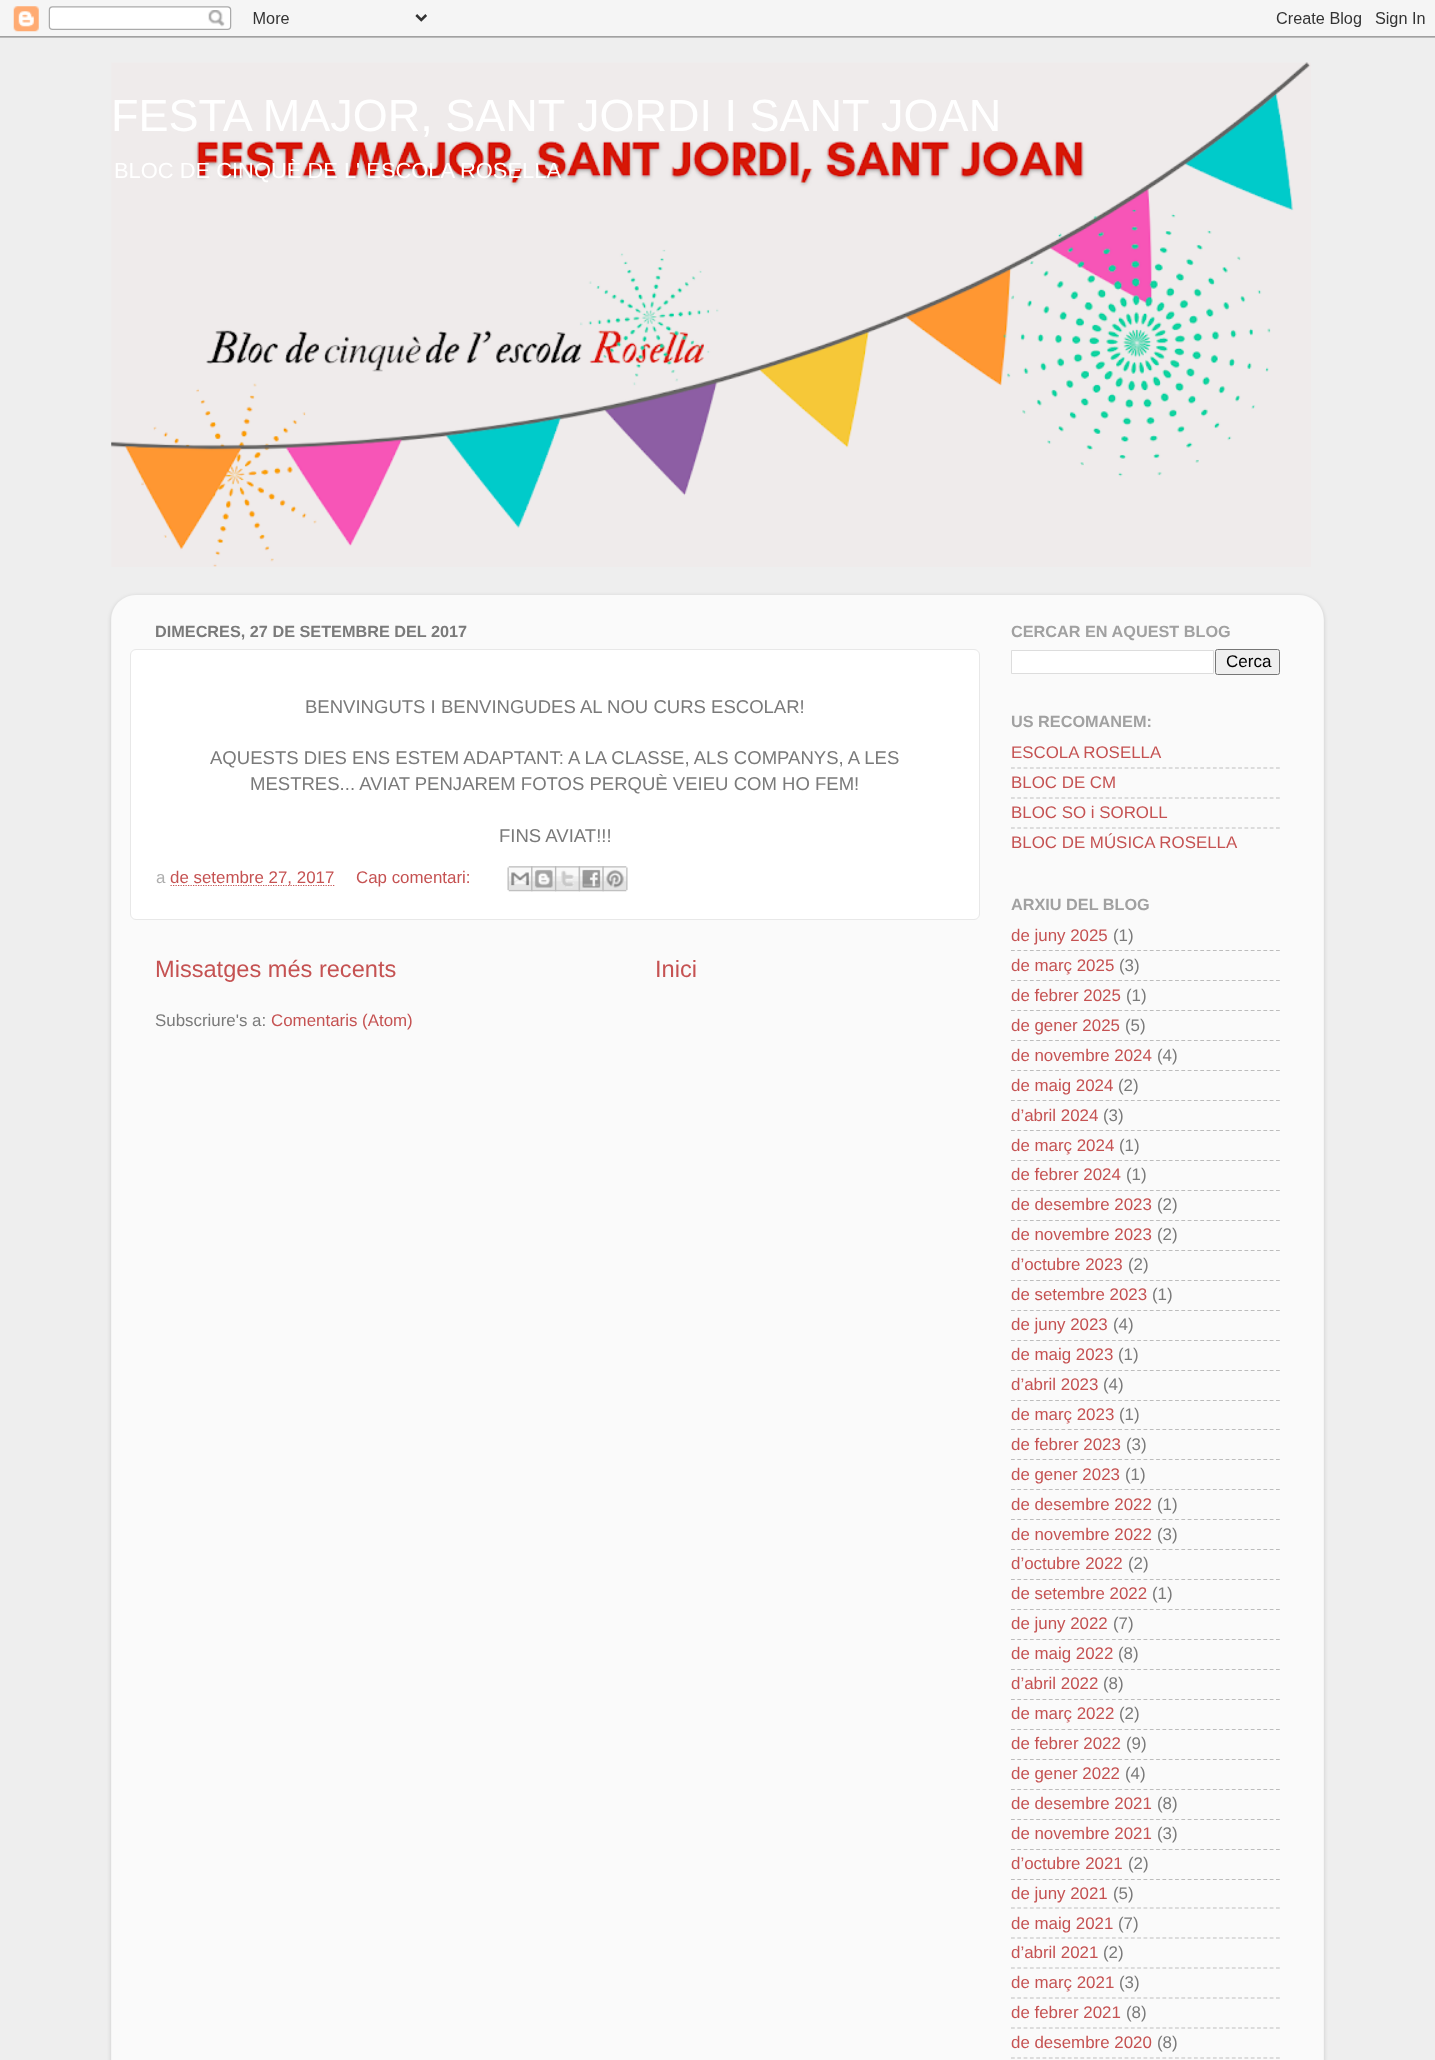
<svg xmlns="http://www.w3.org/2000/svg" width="1435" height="2060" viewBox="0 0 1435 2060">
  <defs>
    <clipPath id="clip1"><path d="M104 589H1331V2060H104ZM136 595H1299C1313 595 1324 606 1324 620V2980H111V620C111 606 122 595 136 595Z" clip-rule="evenodd"/></clipPath>
  </defs>
  <rect width="100%" height="100%" fill="#eee"/>
  <image x="0" y="0" width="1435" height="38" href="img/1.png"/>
  <image x="111" y="62" width="1200" height="505" href="img/2.png"/>
  <g clip-path="url(#clip1)">
    <rect x="111" y="596" width="1213" height="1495" rx="25" fill="#00000026" filter="blur(2px)"/>
  </g>
  <image x="111" y="595" width="1213" height="1465" href="img/3.png"/>
  <rect x="130.5" y="649.5" width="849" height="270" rx="5.5" fill="#fff" stroke="#e8e8e8"/>
  <path d="M170.5 885.5H334.5" fill="none" stroke="#c55252" stroke-width="1.2" stroke-dasharray="1.25 1.25"/>
  <image x="507" y="866" width="26" height="26" href="img/4.png"/>
  <image x="531" y="866" width="26" height="26" href="img/5.png"/>
  <image x="555" y="866" width="25" height="26" href="img/6.png"/>
  <image x="578" y="866" width="26" height="26" href="img/7.png"/>
  <image x="602" y="866" width="26" height="26" href="img/8.png"/>
  <path d="M1011.5 650.5h202v23H1011.5z" fill="#fff" stroke="#ddd"/>
  <rect x="1215.5" y="649.5" width="64" height="25" rx="2" fill="#efefef" stroke="#767676"/>
  <path d="M1011 768H1280" fill="none" stroke="#bdbdbd" stroke-width="1.2" stroke-dasharray="3.75 2.56"/>
  <path d="M1011 798H1280" fill="none" stroke="#bdbdbd" stroke-width="1.2" stroke-dasharray="3.75 2.56"/>
  <path d="M1011 828H1280" fill="none" stroke="#bdbdbd" stroke-width="1.2" stroke-dasharray="3.75 2.56"/>
  <path d="M1011 950.5H1280" fill="none" stroke="#bdbdbd" stroke-width="1.2" stroke-dasharray="3.75 2.56"/>
  <path d="M1011 980.5H1280" fill="none" stroke="#bdbdbd" stroke-width="1.2" stroke-dasharray="3.75 2.56"/>
  <path d="M1011 1010.5H1280" fill="none" stroke="#bdbdbd" stroke-width="1.2" stroke-dasharray="3.75 2.56"/>
  <path d="M1011 1040.5H1280" fill="none" stroke="#bdbdbd" stroke-width="1.2" stroke-dasharray="3.75 2.56"/>
  <path d="M1011 1070.5H1280" fill="none" stroke="#bdbdbd" stroke-width="1.2" stroke-dasharray="3.75 2.56"/>
  <path d="M1011 1100.5H1280" fill="none" stroke="#bdbdbd" stroke-width="1.2" stroke-dasharray="3.75 2.56"/>
  <path d="M1011 1130.5H1280" fill="none" stroke="#bdbdbd" stroke-width="1.2" stroke-dasharray="3.75 2.56"/>
  <path d="M1011 1160.5H1280" fill="none" stroke="#bdbdbd" stroke-width="1.2" stroke-dasharray="3.75 2.56"/>
  <path d="M1011 1190.5H1280" fill="none" stroke="#bdbdbd" stroke-width="1.2" stroke-dasharray="3.75 2.56"/>
  <path d="M1011 1220.5H1280" fill="none" stroke="#bdbdbd" stroke-width="1.2" stroke-dasharray="3.75 2.56"/>
  <path d="M1011 1250.5H1280" fill="none" stroke="#bdbdbd" stroke-width="1.2" stroke-dasharray="3.75 2.56"/>
  <path d="M1011 1280.5H1280" fill="none" stroke="#bdbdbd" stroke-width="1.2" stroke-dasharray="3.75 2.56"/>
  <path d="M1011 1310.5H1280" fill="none" stroke="#bdbdbd" stroke-width="1.2" stroke-dasharray="3.75 2.56"/>
  <path d="M1011 1340.5H1280" fill="none" stroke="#bdbdbd" stroke-width="1.2" stroke-dasharray="3.75 2.56"/>
  <path d="M1011 1370.5H1280" fill="none" stroke="#bdbdbd" stroke-width="1.2" stroke-dasharray="3.75 2.56"/>
  <path d="M1011 1400.5H1280" fill="none" stroke="#bdbdbd" stroke-width="1.2" stroke-dasharray="3.75 2.56"/>
  <path d="M1011 1429.5H1280" fill="none" stroke="#bdbdbd" stroke-width="1.2" stroke-dasharray="3.75 2.56"/>
  <path d="M1011 1459.5H1280" fill="none" stroke="#bdbdbd" stroke-width="1.2" stroke-dasharray="3.75 2.56"/>
  <path d="M1011 1489.5H1280" fill="none" stroke="#bdbdbd" stroke-width="1.2" stroke-dasharray="3.75 2.56"/>
  <path d="M1011 1519.5H1280" fill="none" stroke="#bdbdbd" stroke-width="1.2" stroke-dasharray="3.75 2.56"/>
  <path d="M1011 1549.5H1280" fill="none" stroke="#bdbdbd" stroke-width="1.2" stroke-dasharray="3.75 2.56"/>
  <path d="M1011 1579.5H1280" fill="none" stroke="#bdbdbd" stroke-width="1.2" stroke-dasharray="3.75 2.56"/>
  <path d="M1011 1609.5H1280" fill="none" stroke="#bdbdbd" stroke-width="1.2" stroke-dasharray="3.75 2.56"/>
  <path d="M1011 1639.5H1280" fill="none" stroke="#bdbdbd" stroke-width="1.2" stroke-dasharray="3.75 2.56"/>
  <path d="M1011 1669.5H1280" fill="none" stroke="#bdbdbd" stroke-width="1.2" stroke-dasharray="3.75 2.56"/>
  <path d="M1011 1699.5H1280" fill="none" stroke="#bdbdbd" stroke-width="1.2" stroke-dasharray="3.75 2.56"/>
  <path d="M1011 1729.5H1280" fill="none" stroke="#bdbdbd" stroke-width="1.2" stroke-dasharray="3.75 2.56"/>
  <path d="M1011 1759.5H1280" fill="none" stroke="#bdbdbd" stroke-width="1.2" stroke-dasharray="3.75 2.56"/>
  <path d="M1011 1789.5H1280" fill="none" stroke="#bdbdbd" stroke-width="1.2" stroke-dasharray="3.75 2.56"/>
  <path d="M1011 1819.5H1280" fill="none" stroke="#bdbdbd" stroke-width="1.2" stroke-dasharray="3.75 2.56"/>
  <path d="M1011 1849.5H1280" fill="none" stroke="#bdbdbd" stroke-width="1.2" stroke-dasharray="3.75 2.56"/>
  <path d="M1011 1879.5H1280" fill="none" stroke="#bdbdbd" stroke-width="1.2" stroke-dasharray="3.75 2.56"/>
  <path d="M1011 1908H1280" fill="none" stroke="#bdbdbd" stroke-width="1.2" stroke-dasharray="3.75 2.56"/>
  <path d="M1011 1938H1280" fill="none" stroke="#bdbdbd" stroke-width="1.2" stroke-dasharray="3.75 2.56"/>
  <path d="M1011 1968H1280" fill="none" stroke="#bdbdbd" stroke-width="1.2" stroke-dasharray="3.75 2.56"/>
  <path d="M1011 1998H1280" fill="none" stroke="#bdbdbd" stroke-width="1.2" stroke-dasharray="3.75 2.56"/>
  <path d="M1011 2028H1280" fill="none" stroke="#bdbdbd" stroke-width="1.2" stroke-dasharray="3.75 2.56"/>
  <path d="M1011 2058H1280" fill="none" stroke="#bdbdbd" stroke-width="1.2" stroke-dasharray="3.75 2.56"/>
  <text x="111" y="131" font-family="Liberation Sans" font-size="45" fill="#fff">FESTA MAJOR, SANT JORDI I SANT JOAN</text>
  <text x="114" y="178" font-family="Liberation Sans" font-size="21.9" fill="#fff">BLOC DE CINQUÈ DE L' ESCOLA ROSELLA</text>
  <text x="155" y="637" font-family="Liberation Sans" font-size="16.25" font-weight="bold" fill="#7a7a7a">DIMECRES, 27 DE SETEMBRE DEL 2017</text>
  <g font-family="Liberation Sans" font-size="18.55" fill="#7a7a7a">
    <text x="305" y="713">BENVINGUTS I BENVINGUDES AL NOU CURS ESCOLAR!</text>
    <text x="210" y="764">AQUESTS DIES ENS ESTEM ADAPTANT: A LA CLASSE, ALS COMPANYS, A LES</text>
    <text x="250" y="790">MESTRES... AVIAT PENJAREM FOTOS PERQUÈ VEIEU COM HO FEM!</text>
    <text x="499" y="842">FINS AVIAT!!!</text>
  </g>
  <text x="156" y="883" font-family="Liberation Sans" font-size="16.9" fill="#aeaeae">a</text>
  <g font-family="Liberation Sans" font-size="16.9" fill="#c55252">
    <text x="170" y="883">de setembre 27, 2017</text>
    <text x="356" y="883">Cap comentari:</text>
  </g>
  <g font-family="Liberation Sans" font-size="23.6" fill="#c55252">
    <text x="155" y="977">Missatges més recents</text>
    <text x="655" y="977">Inici</text>
  </g>
  <text x="155" y="1026" font-family="Liberation Sans" font-size="16.9" fill="#7a7a7a">Subscriure's a:</text>
  <text x="271" y="1026" font-family="Liberation Sans" font-size="16.9" fill="#c55252">Comentaris (Atom)</text>
  <text x="1011" y="637" font-family="Liberation Sans" font-size="16.25" font-weight="bold" fill="#a1a1a1">CERCAR EN AQUEST BLOG</text>
  <text x="1226" y="667" font-family="Liberation Sans" font-size="17" fill="#000">Cerca</text>
  <text x="1011" y="727" font-family="Liberation Sans" font-size="16.25" font-weight="bold" fill="#a1a1a1">US RECOMANEM:</text>
  <g font-family="Liberation Sans" font-size="16.9" fill="#c55252">
    <text x="1011" y="758">ESCOLA ROSELLA</text>
    <text x="1011" y="788">BLOC DE CM</text>
    <text x="1011" y="818">BLOC SO i SOROLL</text>
    <text x="1011" y="848">BLOC DE MÚSICA ROSELLA</text>
  </g>
  <text x="1011" y="910" font-family="Liberation Sans" font-size="16.25" font-weight="bold" fill="#a1a1a1">ARXIU DEL BLOG</text>
  <text x="1011" y="941" font-family="Liberation Sans" font-size="16.9" fill="#c55252">de juny 2025</text>
  <text x="1113" y="941" font-family="Liberation Sans" font-size="16.9" fill="#7a7a7a">(1)</text>
  <text x="1011" y="971" font-family="Liberation Sans" font-size="16.9" fill="#c55252">de març 2025</text>
  <text x="1119" y="971" font-family="Liberation Sans" font-size="16.9" fill="#7a7a7a">(3)</text>
  <text x="1011" y="1001" font-family="Liberation Sans" font-size="16.9" fill="#c55252">de febrer 2025</text>
  <text x="1126" y="1001" font-family="Liberation Sans" font-size="16.9" fill="#7a7a7a">(1)</text>
  <text x="1011" y="1031" font-family="Liberation Sans" font-size="16.9" fill="#c55252">de gener 2025</text>
  <text x="1125" y="1031" font-family="Liberation Sans" font-size="16.9" fill="#7a7a7a">(5)</text>
  <text x="1011" y="1061" font-family="Liberation Sans" font-size="16.9" fill="#c55252">de novembre 2024</text>
  <text x="1157" y="1061" font-family="Liberation Sans" font-size="16.9" fill="#7a7a7a">(4)</text>
  <text x="1011" y="1091" font-family="Liberation Sans" font-size="16.9" fill="#c55252">de maig 2024</text>
  <text x="1118" y="1091" font-family="Liberation Sans" font-size="16.9" fill="#7a7a7a">(2)</text>
  <text x="1011" y="1121" font-family="Liberation Sans" font-size="16.9" fill="#c55252">d’abril 2024</text>
  <text x="1103" y="1121" font-family="Liberation Sans" font-size="16.9" fill="#7a7a7a">(3)</text>
  <text x="1011" y="1151" font-family="Liberation Sans" font-size="16.9" fill="#c55252">de març 2024</text>
  <text x="1119" y="1151" font-family="Liberation Sans" font-size="16.9" fill="#7a7a7a">(1)</text>
  <text x="1011" y="1180" font-family="Liberation Sans" font-size="16.9" fill="#c55252">de febrer 2024</text>
  <text x="1126" y="1180" font-family="Liberation Sans" font-size="16.9" fill="#7a7a7a">(1)</text>
  <text x="1011" y="1210" font-family="Liberation Sans" font-size="16.9" fill="#c55252">de desembre 2023</text>
  <text x="1157" y="1210" font-family="Liberation Sans" font-size="16.9" fill="#7a7a7a">(2)</text>
  <text x="1011" y="1240" font-family="Liberation Sans" font-size="16.9" fill="#c55252">de novembre 2023</text>
  <text x="1157" y="1240" font-family="Liberation Sans" font-size="16.9" fill="#7a7a7a">(2)</text>
  <text x="1011" y="1270" font-family="Liberation Sans" font-size="16.9" fill="#c55252">d’octubre 2023</text>
  <text x="1128" y="1270" font-family="Liberation Sans" font-size="16.9" fill="#7a7a7a">(2)</text>
  <text x="1011" y="1300" font-family="Liberation Sans" font-size="16.9" fill="#c55252">de setembre 2023</text>
  <text x="1152" y="1300" font-family="Liberation Sans" font-size="16.9" fill="#7a7a7a">(1)</text>
  <text x="1011" y="1330" font-family="Liberation Sans" font-size="16.9" fill="#c55252">de juny 2023</text>
  <text x="1113" y="1330" font-family="Liberation Sans" font-size="16.9" fill="#7a7a7a">(4)</text>
  <text x="1011" y="1360" font-family="Liberation Sans" font-size="16.9" fill="#c55252">de maig 2023</text>
  <text x="1118" y="1360" font-family="Liberation Sans" font-size="16.9" fill="#7a7a7a">(1)</text>
  <text x="1011" y="1390" font-family="Liberation Sans" font-size="16.9" fill="#c55252">d’abril 2023</text>
  <text x="1103" y="1390" font-family="Liberation Sans" font-size="16.9" fill="#7a7a7a">(4)</text>
  <text x="1011" y="1420" font-family="Liberation Sans" font-size="16.9" fill="#c55252">de març 2023</text>
  <text x="1119" y="1420" font-family="Liberation Sans" font-size="16.9" fill="#7a7a7a">(1)</text>
  <text x="1011" y="1450" font-family="Liberation Sans" font-size="16.9" fill="#c55252">de febrer 2023</text>
  <text x="1126" y="1450" font-family="Liberation Sans" font-size="16.9" fill="#7a7a7a">(3)</text>
  <text x="1011" y="1480" font-family="Liberation Sans" font-size="16.9" fill="#c55252">de gener 2023</text>
  <text x="1125" y="1480" font-family="Liberation Sans" font-size="16.9" fill="#7a7a7a">(1)</text>
  <text x="1011" y="1510" font-family="Liberation Sans" font-size="16.9" fill="#c55252">de desembre 2022</text>
  <text x="1157" y="1510" font-family="Liberation Sans" font-size="16.9" fill="#7a7a7a">(1)</text>
  <text x="1011" y="1540" font-family="Liberation Sans" font-size="16.9" fill="#c55252">de novembre 2022</text>
  <text x="1157" y="1540" font-family="Liberation Sans" font-size="16.9" fill="#7a7a7a">(3)</text>
  <text x="1011" y="1569" font-family="Liberation Sans" font-size="16.9" fill="#c55252">d’octubre 2022</text>
  <text x="1128" y="1569" font-family="Liberation Sans" font-size="16.9" fill="#7a7a7a">(2)</text>
  <text x="1011" y="1599" font-family="Liberation Sans" font-size="16.9" fill="#c55252">de setembre 2022</text>
  <text x="1152" y="1599" font-family="Liberation Sans" font-size="16.9" fill="#7a7a7a">(1)</text>
  <text x="1011" y="1629" font-family="Liberation Sans" font-size="16.9" fill="#c55252">de juny 2022</text>
  <text x="1113" y="1629" font-family="Liberation Sans" font-size="16.9" fill="#7a7a7a">(7)</text>
  <text x="1011" y="1659" font-family="Liberation Sans" font-size="16.9" fill="#c55252">de maig 2022</text>
  <text x="1118" y="1659" font-family="Liberation Sans" font-size="16.9" fill="#7a7a7a">(8)</text>
  <text x="1011" y="1689" font-family="Liberation Sans" font-size="16.9" fill="#c55252">d’abril 2022</text>
  <text x="1103" y="1689" font-family="Liberation Sans" font-size="16.9" fill="#7a7a7a">(8)</text>
  <text x="1011" y="1719" font-family="Liberation Sans" font-size="16.9" fill="#c55252">de març 2022</text>
  <text x="1119" y="1719" font-family="Liberation Sans" font-size="16.9" fill="#7a7a7a">(2)</text>
  <text x="1011" y="1749" font-family="Liberation Sans" font-size="16.9" fill="#c55252">de febrer 2022</text>
  <text x="1126" y="1749" font-family="Liberation Sans" font-size="16.9" fill="#7a7a7a">(9)</text>
  <text x="1011" y="1779" font-family="Liberation Sans" font-size="16.9" fill="#c55252">de gener 2022</text>
  <text x="1125" y="1779" font-family="Liberation Sans" font-size="16.9" fill="#7a7a7a">(4)</text>
  <text x="1011" y="1809" font-family="Liberation Sans" font-size="16.9" fill="#c55252">de desembre 2021</text>
  <text x="1157" y="1809" font-family="Liberation Sans" font-size="16.9" fill="#7a7a7a">(8)</text>
  <text x="1011" y="1839" font-family="Liberation Sans" font-size="16.9" fill="#c55252">de novembre 2021</text>
  <text x="1157" y="1839" font-family="Liberation Sans" font-size="16.9" fill="#7a7a7a">(3)</text>
  <text x="1011" y="1869" font-family="Liberation Sans" font-size="16.9" fill="#c55252">d’octubre 2021</text>
  <text x="1128" y="1869" font-family="Liberation Sans" font-size="16.9" fill="#7a7a7a">(2)</text>
  <text x="1011" y="1899" font-family="Liberation Sans" font-size="16.9" fill="#c55252">de juny 2021</text>
  <text x="1113" y="1899" font-family="Liberation Sans" font-size="16.9" fill="#7a7a7a">(5)</text>
  <text x="1011" y="1929" font-family="Liberation Sans" font-size="16.9" fill="#c55252">de maig 2021</text>
  <text x="1118" y="1929" font-family="Liberation Sans" font-size="16.9" fill="#7a7a7a">(7)</text>
  <text x="1011" y="1958" font-family="Liberation Sans" font-size="16.9" fill="#c55252">d’abril 2021</text>
  <text x="1103" y="1958" font-family="Liberation Sans" font-size="16.9" fill="#7a7a7a">(2)</text>
  <text x="1011" y="1988" font-family="Liberation Sans" font-size="16.9" fill="#c55252">de març 2021</text>
  <text x="1119" y="1988" font-family="Liberation Sans" font-size="16.9" fill="#7a7a7a">(3)</text>
  <text x="1011" y="2018" font-family="Liberation Sans" font-size="16.9" fill="#c55252">de febrer 2021</text>
  <text x="1126" y="2018" font-family="Liberation Sans" font-size="16.9" fill="#7a7a7a">(8)</text>
  <text x="1011" y="2048" font-family="Liberation Sans" font-size="16.9" fill="#c55252">de desembre 2020</text>
  <text x="1157" y="2048" font-family="Liberation Sans" font-size="16.9" fill="#7a7a7a">(8)</text>
</svg>
